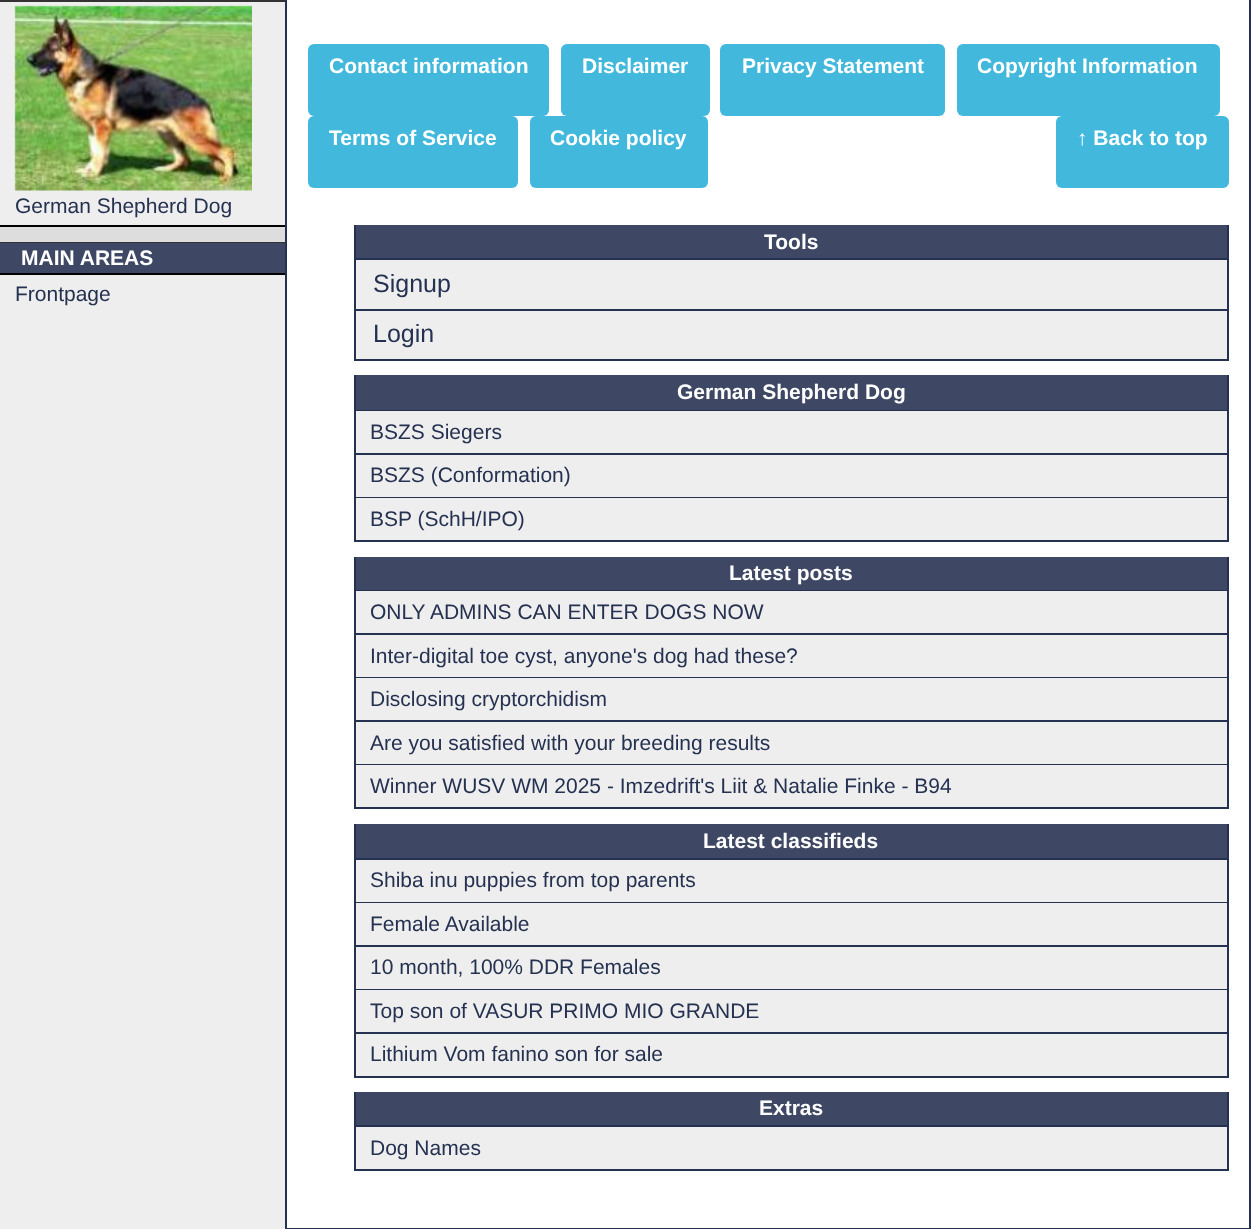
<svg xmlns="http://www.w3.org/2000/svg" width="1251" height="1229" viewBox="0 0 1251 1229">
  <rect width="100%" height="100%" fill="#fff"/>
  <path d="M0 227h285v15H0z" fill="#ddd"/>
  <path d="M0 2h285v223H0z" fill="#eee"/>
  <path d="M0 0h285v2H0z" fill="#333"/>
  <path d="M0 225h285v2H0z" fill="#000"/>
  <image x="14" y="5" width="238" height="186" href="img/1.png"/>
  <path d="M0 275h285v954H0z" fill="#eee"/>
  <path d="M0 242h285v1H0z" fill="#333"/>
  <path d="M0 243h285v30H0z" fill="#3e4864"/>
  <path d="M0 273h285v2H0z" fill="#000"/>
  <path d="M286 -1h964v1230H286z" fill="none" stroke="#253150" stroke-width="2"/>
  <rect x="308" y="44" width="241" height="72" rx="6" fill="#42b8dd"/>
  <rect x="561" y="44" width="149" height="72" rx="6" fill="#42b8dd"/>
  <rect x="720" y="44" width="225" height="72" rx="6" fill="#42b8dd"/>
  <rect x="957" y="44" width="263" height="72" rx="6" fill="#42b8dd"/>
  <rect x="308" y="116" width="210" height="72" rx="6" fill="#42b8dd"/>
  <rect x="530" y="116" width="178" height="72" rx="6" fill="#42b8dd"/>
  <rect x="1056" y="116" width="173" height="72" rx="6" fill="#42b8dd"/>
  <path d="M356 225h871v33H356z" fill="#3e4864"/>
  <path d="M1227 225h2v135H1227z" fill="#253150"/>
  <path d="M354 258h875v2H354z" fill="#253150"/>
  <path d="M354 225h2v35H354z" fill="#253150"/>
  <path d="M354 309h875v2H354z" fill="#253150"/>
  <path d="M354 260h2v51H354z" fill="#253150"/>
  <path d="M356 260h871v49H356z" fill="#eee"/>
  <path d="M354 359h875v2H354z" fill="#253150"/>
  <path d="M354 311h2v49H354z" fill="#253150"/>
  <path d="M356 311h871v48H356z" fill="#eee"/>
  <path d="M356 375h871v35H356z" fill="#3e4864"/>
  <path d="M1227 375h2v167H1227z" fill="#253150"/>
  <path d="M354 410h875v1H354z" fill="#253150"/>
  <path d="M354 375h2v36H354z" fill="#253150"/>
  <path d="M354 453h875v2H354z" fill="#253150"/>
  <path d="M354 411h2v44H354z" fill="#253150"/>
  <path d="M356 411h871v42H356z" fill="#eee"/>
  <path d="M354 497h875v1H354z" fill="#253150"/>
  <path d="M354 455h2v43H354z" fill="#253150"/>
  <path d="M356 455h871v42H356z" fill="#eee"/>
  <path d="M354 540h875v2H354z" fill="#253150"/>
  <path d="M354 498h2v44H354z" fill="#253150"/>
  <path d="M356 498h871v42H356z" fill="#eee"/>
  <path d="M356 557h871v33H356z" fill="#3e4864"/>
  <path d="M1227 557h2v252H1227z" fill="#253150"/>
  <path d="M354 590h875v1H354z" fill="#253150"/>
  <path d="M354 557h2v34H354z" fill="#253150"/>
  <path d="M354 633h875v2H354z" fill="#253150"/>
  <path d="M354 591h2v44H354z" fill="#253150"/>
  <path d="M356 591h871v42H356z" fill="#eee"/>
  <path d="M354 677h875v1H354z" fill="#253150"/>
  <path d="M354 635h2v43H354z" fill="#253150"/>
  <path d="M356 635h871v42H356z" fill="#eee"/>
  <path d="M354 720h875v2H354z" fill="#253150"/>
  <path d="M354 678h2v44H354z" fill="#253150"/>
  <path d="M356 678h871v42H356z" fill="#eee"/>
  <path d="M354 764h875v1H354z" fill="#253150"/>
  <path d="M354 722h2v43H354z" fill="#253150"/>
  <path d="M356 722h871v42H356z" fill="#eee"/>
  <path d="M354 807h875v2H354z" fill="#253150"/>
  <path d="M354 765h2v44H354z" fill="#253150"/>
  <path d="M356 765h871v42H356z" fill="#eee"/>
  <path d="M356 824h871v34H356z" fill="#3e4864"/>
  <path d="M1227 824h2v253H1227z" fill="#253150"/>
  <path d="M354 858h875v2H354z" fill="#253150"/>
  <path d="M354 824h2v36H354z" fill="#253150"/>
  <path d="M354 902h875v1H354z" fill="#253150"/>
  <path d="M354 860h2v43H354z" fill="#253150"/>
  <path d="M356 860h871v42H356z" fill="#eee"/>
  <path d="M354 945h875v2H354z" fill="#253150"/>
  <path d="M354 903h2v44H354z" fill="#253150"/>
  <path d="M356 903h871v42H356z" fill="#eee"/>
  <path d="M354 989h875v1H354z" fill="#253150"/>
  <path d="M354 947h2v43H354z" fill="#253150"/>
  <path d="M356 947h871v42H356z" fill="#eee"/>
  <path d="M354 1032h875v2H354z" fill="#253150"/>
  <path d="M354 990h2v44H354z" fill="#253150"/>
  <path d="M356 990h871v42H356z" fill="#eee"/>
  <path d="M354 1076h875v2H354z" fill="#253150"/>
  <path d="M354 1034h2v43H354z" fill="#253150"/>
  <path d="M356 1034h871v42H356z" fill="#eee"/>
  <path d="M356 1092h871v33H356z" fill="#3e4864"/>
  <path d="M1227 1092h2v78H1227z" fill="#253150"/>
  <path d="M354 1125h875v2H354z" fill="#253150"/>
  <path d="M354 1092h2v35H354z" fill="#253150"/>
  <path d="M354 1169h875v2H354z" fill="#253150"/>
  <path d="M354 1127h2v43H354z" fill="#253150"/>
  <path d="M356 1127h871v42H356z" fill="#eee"/>
  <text x="15" y="213" font-family="Liberation Sans" font-size="21" fill="#253150">German Shepherd Dog</text>
  <text x="21" y="265" font-family="Liberation Sans" font-size="21" font-weight="bold" fill="#fff">MAIN AREAS</text>
  <text x="15" y="301" font-family="Liberation Sans" font-size="21" fill="#253150">Frontpage</text>
  <g font-family="Liberation Sans" font-size="21" font-weight="bold" fill="#fff">
    <text x="329" y="73">Contact information</text>
    <text x="582" y="73">Disclaimer</text>
    <text x="742" y="73">Privacy Statement</text>
    <text x="977" y="73">Copyright Information</text>
    <text x="329" y="145">Terms of Service</text>
    <text x="550" y="145">Cookie policy</text>
    <text x="1077" y="145">↑ Back to top</text>
    <text x="764" y="249">Tools</text>
  </g>
  <g font-family="Liberation Sans" font-size="25" fill="#253150">
    <text x="373" y="292">Signup</text>
    <text x="373" y="342">Login</text>
  </g>
  <text x="677" y="399" font-family="Liberation Sans" font-size="21" font-weight="bold" fill="#fff">German Shepherd Dog</text>
  <g font-family="Liberation Sans" font-size="21" fill="#253150">
    <text x="370" y="439">BSZS Siegers</text>
    <text x="370" y="482">BSZS (Conformation)</text>
    <text x="370" y="526">BSP (SchH/IPO)</text>
  </g>
  <text x="729" y="580" font-family="Liberation Sans" font-size="21" font-weight="bold" fill="#fff">Latest posts</text>
  <g font-family="Liberation Sans" font-size="21" fill="#253150">
    <text x="370" y="619">ONLY ADMINS CAN ENTER DOGS NOW</text>
    <text x="370" y="663">Inter-digital toe cyst, anyone's dog had these?</text>
    <text x="370" y="706">Disclosing cryptorchidism</text>
    <text x="370" y="750">Are you satisfied with your breeding results</text>
    <text x="370" y="793">Winner WUSV WM 2025 - Imzedrift's Liit &amp; Natalie Finke - B94</text>
  </g>
  <text x="703" y="848" font-family="Liberation Sans" font-size="21" font-weight="bold" fill="#fff">Latest classifieds</text>
  <g font-family="Liberation Sans" font-size="21" fill="#253150">
    <text x="370" y="887">Shiba inu puppies from top parents</text>
    <text x="370" y="931">Female Available</text>
    <text x="370" y="974">10 month, 100% DDR Females</text>
    <text x="370" y="1018">Top son of VASUR PRIMO MIO GRANDE</text>
    <text x="370" y="1061">Lithium Vom fanino son for sale</text>
  </g>
  <text x="759" y="1115" font-family="Liberation Sans" font-size="21" font-weight="bold" fill="#fff">Extras</text>
  <text x="370" y="1155" font-family="Liberation Sans" font-size="21" fill="#253150">Dog Names</text>
</svg>
